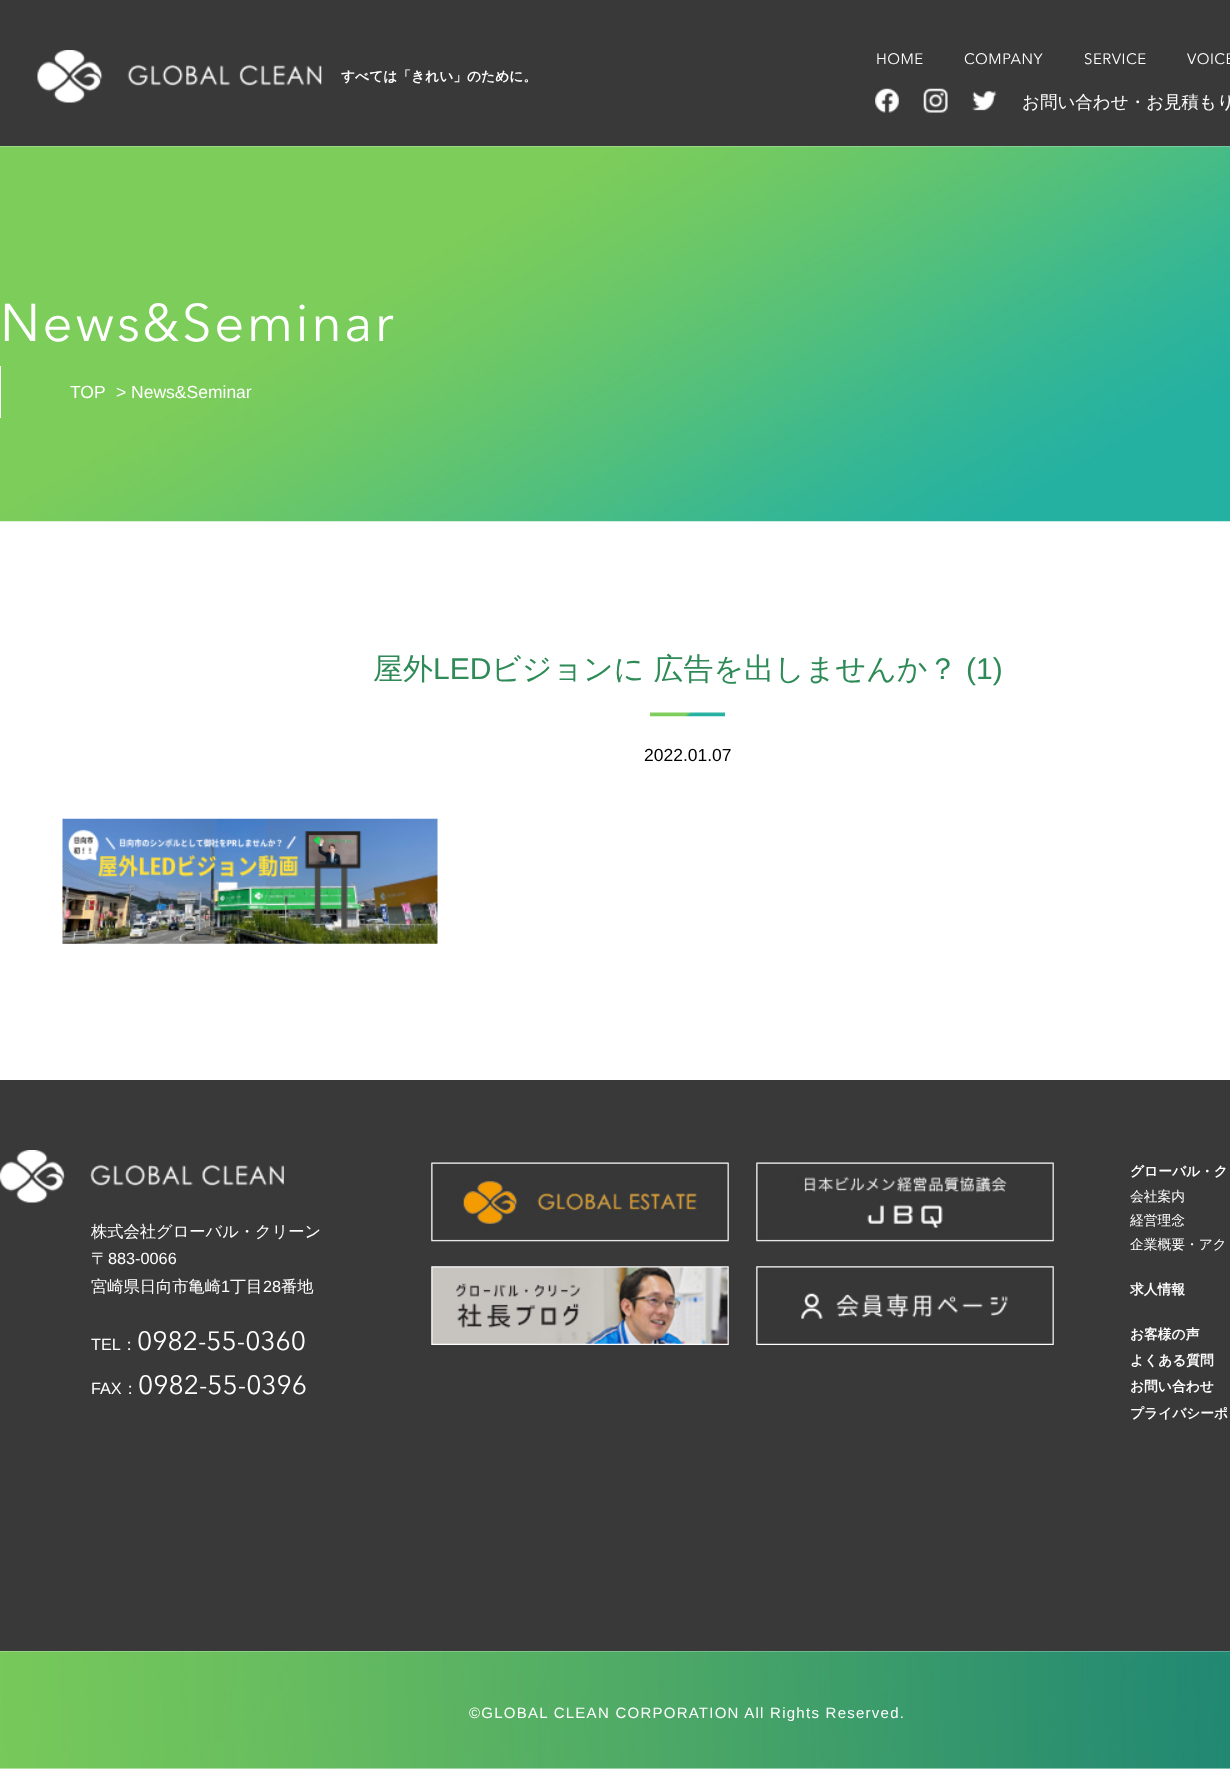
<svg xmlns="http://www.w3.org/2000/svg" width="1230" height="1773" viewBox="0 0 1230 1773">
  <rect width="100%" height="100%" fill="#fff"/>
  <path d="M0 0h1230v146H0z" fill="#393939"/>
  <image x="37" y="50" width="285" height="53" href="img/1.png"/>
  <image x="875" y="88" width="24" height="25" href="img/2.png"/>
  <image x="923" y="88" width="25" height="25" href="img/3.png"/>
  <image x="972" y="91" width="25" height="20" href="img/4.png"/>
  <image x="0" y="146" width="1230" height="376" href="img/5.png"/>
  <path d="M0 366h1v52H0z" fill="#fff"/>
  <image x="650" y="712" width="75" height="5" href="img/6.png"/>
  <image x="62" y="818" width="376" height="126" href="img/7.png"/>
  <path d="M0 1080h1230v571H0z" fill="#393939"/>
  <image x="0" y="1150" width="284" height="53" href="img/8.png"/>
  <image x="431" y="1162" width="298" height="80" href="img/9.png"/>
  <image x="756" y="1162" width="298" height="80" href="img/10.png"/>
  <image x="431" y="1266" width="298" height="79" href="img/11.png"/>
  <image x="756" y="1266" width="298" height="79" href="img/12.png"/>
  <image x="0" y="1651" width="1230" height="118" href="img/13.png"/>
  <text x="341" y="81" font-family="WenQuanYi Zen Hei" font-size="13.75" font-weight="bold" fill="#fff">すべては「きれい」のために。</text>
  <g font-family="Avenir Next" font-size="15" letter-spacing="0.5" fill="#fff">
    <text x="876" y="64">HOME</text>
    <text x="964" y="64">COMPANY</text>
    <text x="1084" y="64">SERVICE</text>
    <text x="1187" y="64">VOICE</text>
  </g>
  <text x="1022" y="108" font-family="WenQuanYi Zen Hei" font-size="17.5" font-weight="500" fill="#fff">お問い合わせ・お見積もり</text>
  <text x="0" y="341" font-family="Avenir Next" font-size="52.5" letter-spacing="2.5" fill="#fff">News&amp;Seminar</text>
  <g font-family="Liberation Sans" font-size="17.5" fill="#fff">
    <text x="70" y="398">TOP</text>
    <text x="116" y="398">&gt; News&amp;Seminar</text>
  </g>
  <text x="373" y="679" font-family="WenQuanYi Zen Hei" font-size="30" font-weight="500" fill="#2e8b57">屋外</text>
  <text x="433" y="679" font-family="Liberation Sans" font-size="30" fill="#2e8b57">LED</text>
  <text x="491" y="679" font-family="WenQuanYi Zen Hei" font-size="30" font-weight="500" fill="#2e8b57">ビジョンに 広告を出しませんか？</text>
  <text x="966" y="679" font-family="Liberation Sans" font-size="30" fill="#2e8b57">(1)</text>
  <text x="644" y="761" font-family="Liberation Sans" font-size="17.5" fill="#000">2022.01.07</text>
  <g font-family="WenQuanYi Zen Hei" font-size="16.25" font-weight="500" fill="#fff">
    <text x="91" y="1237">株式会社グローバル・クリーン</text>
    <text x="91" y="1264">〒</text>
  </g>
  <text x="108" y="1264" font-family="Liberation Sans" font-size="16.25" fill="#fff">883-0066</text>
  <text x="91" y="1292" font-family="WenQuanYi Zen Hei" font-size="16.25" font-weight="500" fill="#fff">宮崎県日向市亀崎</text>
  <text x="221" y="1292" font-family="Liberation Sans" font-size="16.25" fill="#fff">1</text>
  <text x="230" y="1292" font-family="WenQuanYi Zen Hei" font-size="16.25" font-weight="500" fill="#fff">丁目</text>
  <text x="263" y="1292" font-family="Liberation Sans" font-size="16.25" fill="#fff">28</text>
  <text x="281" y="1292" font-family="WenQuanYi Zen Hei" font-size="16.25" font-weight="500" fill="#fff">番地</text>
  <text x="91" y="1350" font-family="Liberation Sans" font-size="16.25" fill="#fff">TEL</text>
  <text x="121" y="1350" font-family="WenQuanYi Zen Hei" font-size="16.25" font-weight="500" fill="#fff">：</text>
  <text x="137" y="1350" font-family="Avenir Next" font-size="26.25" fill="#fff">0982-55-0360</text>
  <text x="91" y="1394" font-family="Liberation Sans" font-size="16.25" fill="#fff">FAX</text>
  <text x="122" y="1394" font-family="WenQuanYi Zen Hei" font-size="16.25" font-weight="500" fill="#fff">：</text>
  <text x="138" y="1394" font-family="Avenir Next" font-size="26.25" fill="#fff">0982-55-0396</text>
  <text x="1130" y="1176" font-family="WenQuanYi Zen Hei" font-size="13.75" font-weight="bold" fill="#fff">グローバル・ク</text>
  <g font-family="WenQuanYi Zen Hei" font-size="13.75" font-weight="500" fill="#fff">
    <text x="1130" y="1201">会社案内</text>
    <text x="1130" y="1225">経営理念</text>
    <text x="1130" y="1249">企業概要・アク</text>
  </g>
  <g font-family="WenQuanYi Zen Hei" font-size="13.75" font-weight="bold" fill="#fff">
    <text x="1130" y="1294">求人情報</text>
    <text x="1130" y="1339">お客様の声</text>
    <text x="1130" y="1365">よくある質問</text>
    <text x="1130" y="1391">お問い合わせ</text>
    <text x="1130" y="1418">プライバシーポ</text>
  </g>
  <text x="469" y="1718" font-family="Liberation Sans" font-size="15" letter-spacing="1.25" fill="#fff">©GLOBAL CLEAN CORPORATION All Rights Reserved.</text>
</svg>
